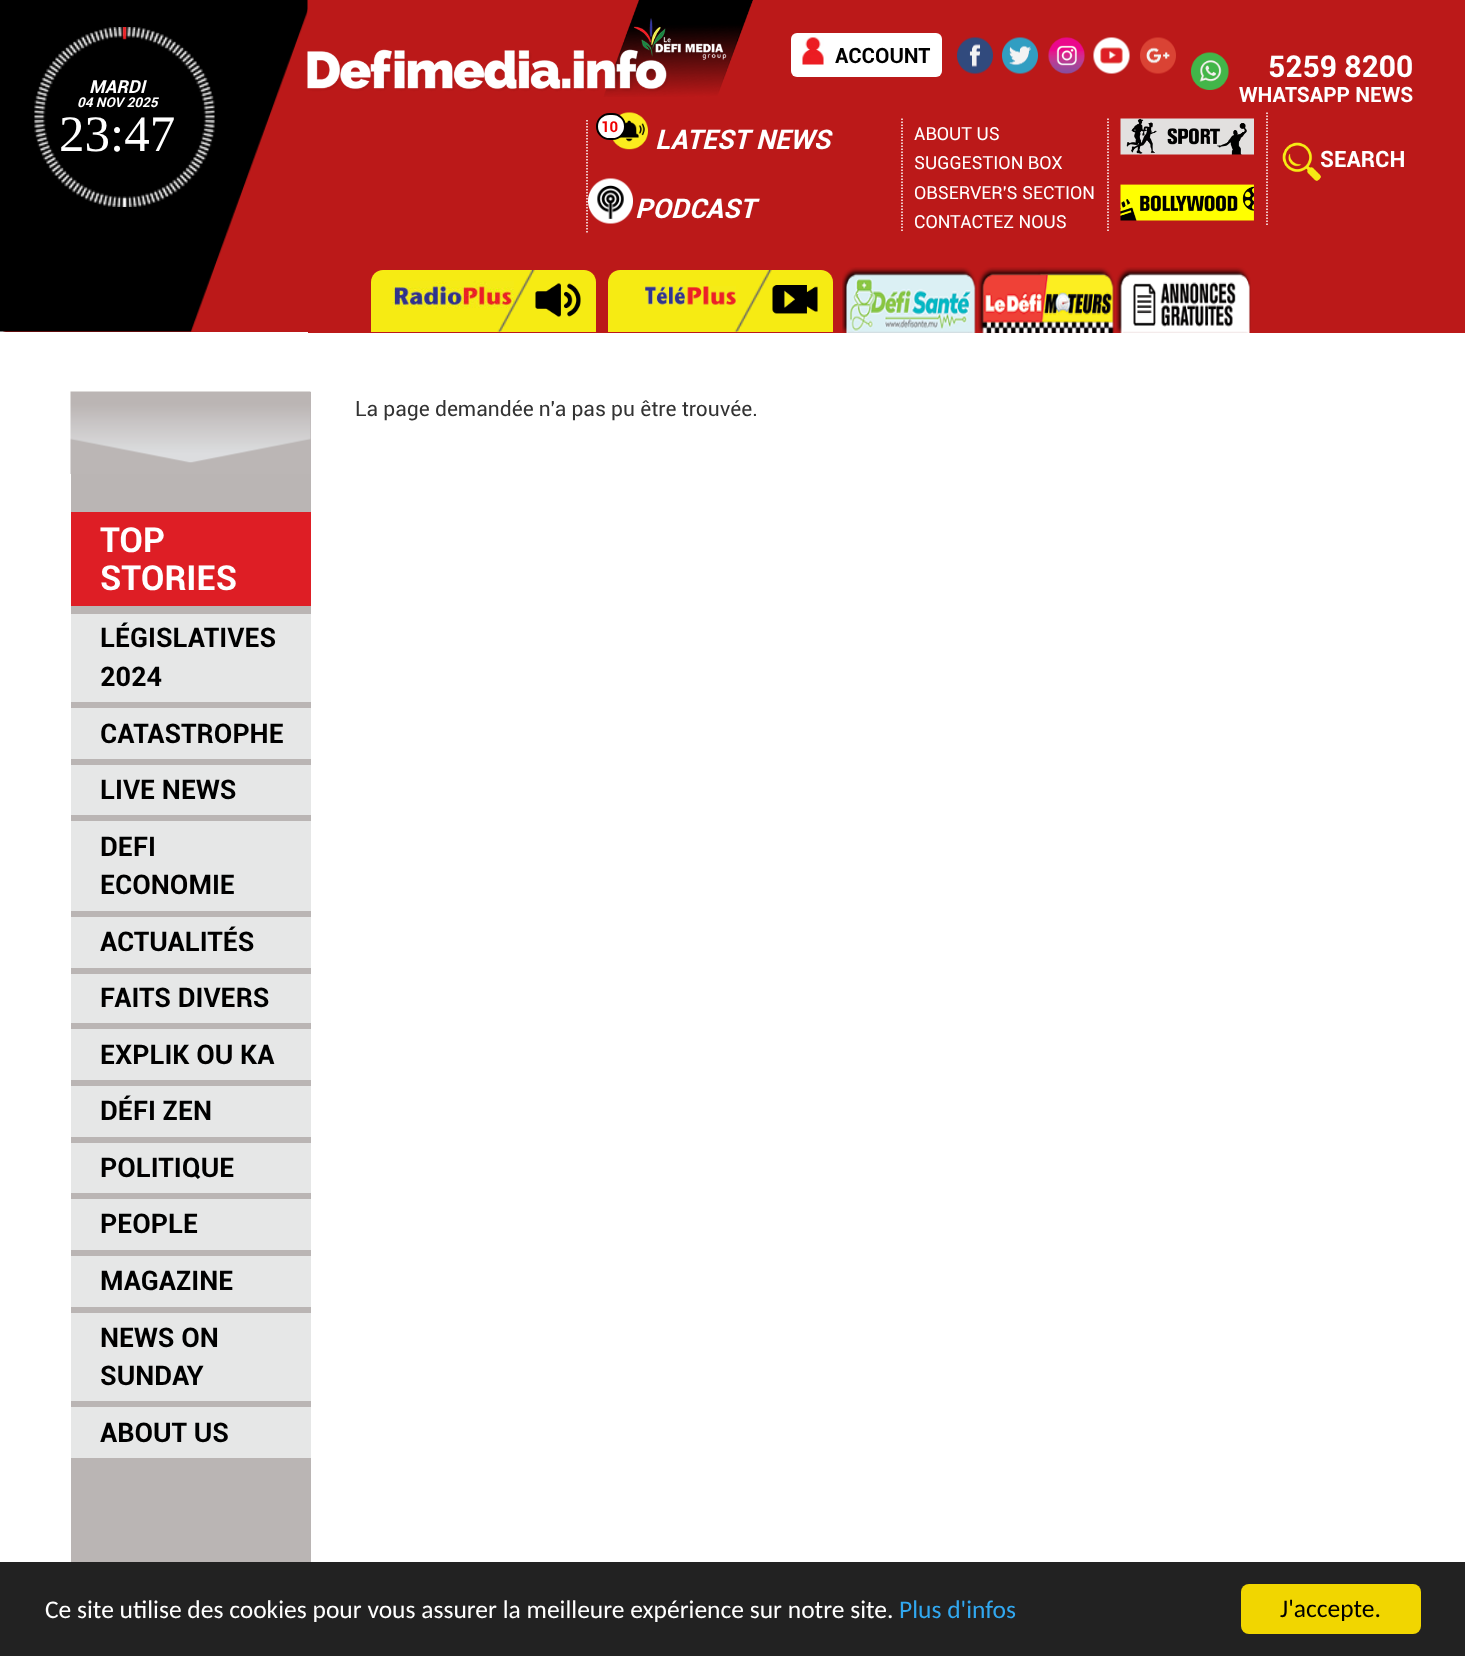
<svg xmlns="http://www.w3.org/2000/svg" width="1465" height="1656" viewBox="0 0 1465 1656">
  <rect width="100%" height="100%" fill="#fff"/>
  <rect width="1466" height="332" rx="6" fill="#bb1919"/>
  <path d="M308 0h1157v333H308z" fill="#bb1919"/>
  <image x="307" y="0" width="446" height="97" href="img/4.png"/>
  <image x="0" y="0" width="308" height="332" href="img/1.png"/>
  <path d="M383 270H584C590.5 270 596 275.5 596 282V332H371V282C371 275.5 376.5 270 383 270Z" fill="#f6eb13"/>
  <image x="392" y="280" width="122" height="28" href="img/5.png"/>
  <image x="497" y="270" width="38" height="62" href="img/6.png"/>
  <image x="535" y="283" width="46" height="34" href="img/7.png"/>
  <path d="M620 270H821C827.5 270 833 275.5 833 282V332H608V282C608 275.5 613.5 270 620 270Z" fill="#f6eb13"/>
  <image x="645" y="286" width="91" height="19" href="img/8.png"/>
  <image x="734" y="270" width="38" height="62" href="img/9.png"/>
  <image x="772" y="285" width="46" height="29" href="img/10.png"/>
  <rect x="791" y="33" width="151" height="44" rx="6" fill="#fff"/>
  <image x="802" y="37" width="22" height="28" href="img/11.png"/>
  <image x="957" y="37" width="36" height="37" href="img/12.png"/>
  <image x="1002" y="37" width="36" height="37" href="img/13.png"/>
  <image x="1048" y="37" width="37" height="37" href="img/14.png"/>
  <image x="1093" y="37" width="37" height="37" href="img/15.png"/>
  <image x="1140" y="37" width="36" height="37" href="img/16.png"/>
  <image x="1191" y="52" width="38" height="38" href="img/17.png"/>
  <path d="M587 120V232.5" fill="none" stroke="#fff" stroke-width="1.5" stroke-dasharray="1.5 1.5"/>
  <image x="612" y="112" width="36" height="38" href="img/18.png"/>
  <rect x="597" y="114" width="28" height="25" rx="12.5" fill="#fff" stroke="#000" stroke-width="2"/>
  <image x="588" y="178" width="45" height="46" href="img/19.png"/>
  <path d="M902 118.5V231" fill="none" stroke="#fff" stroke-width="1.5" stroke-dasharray="1.5 1.5"/>
  <path d="M1108 118.5V231" fill="none" stroke="#fff" stroke-width="1.5" stroke-dasharray="1.5 1.5"/>
  <image x="1120" y="118" width="134" height="37" href="img/20.png"/>
  <image x="1120" y="184" width="134" height="37" href="img/21.png"/>
  <path d="M1267 112.5V225" fill="none" stroke="#fff" stroke-width="1.5" stroke-dasharray="1.5 1.5"/>
  <image x="1282" y="142" width="39" height="39" href="img/22.png"/>
  <image x="842" y="267" width="135" height="66" href="img/23.png"/>
  <image x="978" y="267" width="137" height="66" href="img/24.png"/>
  <image x="1116" y="267" width="135" height="66" href="img/25.png"/>
  <path d="M71 392h240v1170H71z" fill="#bab5b4"/>
  <image x="70" y="391" width="241" height="83" href="img/26.png"/>
  <path d="M71 512h240v94H71z" fill="#de1e25"/>
  <path d="M71 614h240v88H71z" fill="#e6e7e7"/>
  <path d="M71 708h240v51H71z" fill="#e6e7e7"/>
  <path d="M71 765h240v50H71z" fill="#e6e7e7"/>
  <path d="M71 821h240v90H71z" fill="#e6e7e7"/>
  <path d="M71 917h240v51H71z" fill="#e6e7e7"/>
  <path d="M71 974h240v49H71z" fill="#e6e7e7"/>
  <path d="M71 1029h240v51H71z" fill="#e6e7e7"/>
  <path d="M71 1086h240v51H71z" fill="#e6e7e7"/>
  <path d="M71 1143h240v50H71z" fill="#e6e7e7"/>
  <path d="M71 1199h240v51H71z" fill="#e6e7e7"/>
  <path d="M71 1256h240v51H71z" fill="#e6e7e7"/>
  <path d="M71 1313h240v88H71z" fill="#e6e7e7"/>
  <path d="M71 1407h240v51H71z" fill="#e6e7e7"/>
  <path d="M0 1562h1465v94H0z" fill="#222"/>
  <rect x="1241" y="1584" width="180" height="50" rx="8" fill="#f1d600"/>
  <text x="89" y="93" font-family="Roboto" font-size="18" font-weight="bold" font-style="italic" fill="#fff">MARDI</text>
  <text x="77" y="107" font-family="Roboto" font-size="13.5" font-weight="bold" font-style="italic" fill="#fff">04 NOV 2025</text>
  <text x="59" y="151" font-family="Liberation Serif" font-size="51" fill="#fff">23:47</text>
  <image x="34" y="27" width="181" height="180" href="img/2.png"/>
  <image x="122" y="27" width="5" height="13" href="img/3.png"/>
  <text x="835" y="63" font-family="Roboto" font-size="21" font-weight="bold" fill="#000">ACCOUNT</text>
  <text x="1268" y="77" font-family="Roboto" font-size="30" font-weight="bold" fill="#fff">5259 8200</text>
  <text x="1239" y="102" font-family="Roboto" font-size="21" font-weight="bold" fill="#fff">WHATSAPP NEWS</text>
  <text x="601" y="132" font-family="Roboto" font-size="15" font-weight="bold" fill="#e00">10</text>
  <g font-family="Roboto" font-size="27" font-weight="bold" font-style="italic" fill="#fff">
    <text x="655" y="149">LATEST NEWS</text>
    <text x="635" y="218">PODCAST</text>
  </g>
  <g font-family="Roboto" font-size="18" fill="#fff">
    <text x="914" y="140">ABOUT US</text>
    <text x="914" y="169">SUGGESTION BOX</text>
    <text x="914" y="199">OBSERVER'S SECTION</text>
    <text x="914" y="228">CONTACTEZ NOUS</text>
  </g>
  <text x="1320" y="167" font-family="Roboto" font-size="22.5" font-weight="bold" fill="#fff">SEARCH</text>
  <text x="355" y="416" font-family="Roboto" font-size="21" fill="#333">La page demandée n'a pas pu être trouvée.</text>
  <g font-family="Roboto" font-size="34.5" font-weight="bold" fill="#fff">
    <text x="100" y="552">TOP</text>
    <text x="100" y="590">STORIES</text>
  </g>
  <g font-family="Roboto" font-size="27" font-weight="bold" fill="#000">
    <text x="100" y="647">LÉGISLATIVES</text>
    <text x="100" y="686">2024</text>
    <text x="100" y="743">CATASTROPHE</text>
    <text x="100" y="799">LIVE NEWS</text>
    <text x="100" y="856">DEFI</text>
    <text x="100" y="894">ECONOMIE</text>
    <text x="100" y="951">ACTUALITÉS</text>
    <text x="100" y="1007">FAITS DIVERS</text>
    <text x="100" y="1064">EXPLIK OU KA</text>
    <text x="100" y="1120">DÉFI ZEN</text>
    <text x="100" y="1177">POLITIQUE</text>
    <text x="100" y="1233">PEOPLE</text>
    <text x="100" y="1290">MAGAZINE</text>
    <text x="100" y="1347">NEWS ON</text>
    <text x="100" y="1385">SUNDAY</text>
    <text x="100" y="1442">ABOUT US</text>
  </g>
  <text x="45" y="1618" font-family="Carlito" font-size="25.5" fill="#fff">Ce site utilise des cookies pour vous assurer la meilleure expérience sur notre site.</text>
  <text x="899" y="1618" font-family="Carlito" font-size="25.5" fill="#31a8f0">Plus d'infos</text>
  <text x="1280" y="1617" font-family="Carlito" font-size="25.5" fill="#000">J'accepte.</text>
</svg>
